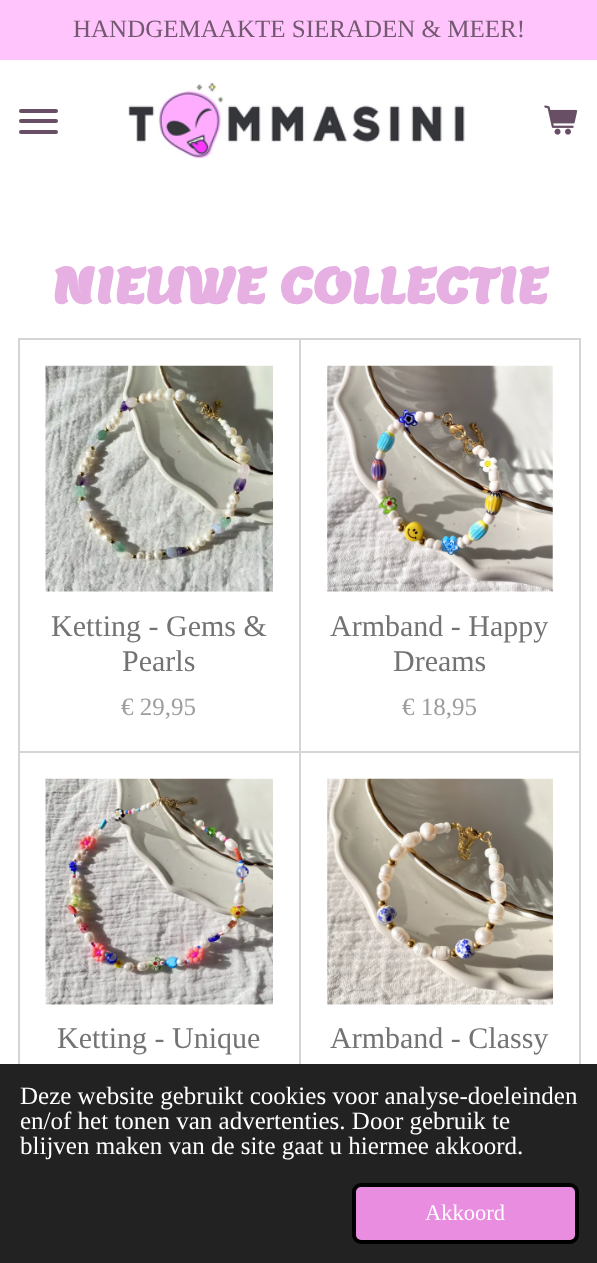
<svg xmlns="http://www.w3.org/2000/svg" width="597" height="1263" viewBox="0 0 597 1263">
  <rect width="100%" height="100%" fill="#fff"/>
  <path d="M0 0h597v60H0z" fill="#ffc4fb"/>
  <rect x="19" y="119" width="39" height="4" rx="2" fill="#684f66"/>
  <rect x="19" y="109" width="39" height="4" rx="2" fill="#684f66"/>
  <rect x="19" y="130" width="39" height="4" rx="2" fill="#684f66"/>
  <image x="128" y="82" width="337" height="77" href="img/1.png"/>
  <image x="544" y="105" width="34" height="30" href="img/2.png"/>
  <path d="M19 339h281v413H19z" fill="none" stroke="#d5d5d5" stroke-width="2"/>
  <image x="45" y="365" width="228" height="227" href="img/3.png"/>
  <path d="M300 339h280v413H300z" fill="none" stroke="#d5d5d5" stroke-width="2"/>
  <image x="327" y="365" width="226" height="227" href="img/4.png"/>
  <path d="M19 752h281v411H19z" fill="none" stroke="#d5d5d5" stroke-width="2"/>
  <image x="45" y="778" width="228" height="227" href="img/5.png"/>
  <path d="M300 752h280v411H300z" fill="none" stroke="#d5d5d5" stroke-width="2"/>
  <image x="327" y="778" width="226" height="227" href="img/6.png"/>
  <path d="M0 1064h597v199H0z" fill="#222"/>
  <rect x="354" y="1185" width="223" height="57" rx="7" fill="#e98de1" stroke="#000" stroke-width="4"/>
  <text x="73" y="37" font-family="Liberation Serif" font-size="25" fill="#735871">HANDGEMAAKTE SIERADEN &amp; MEER!</text>
  <text x="52" y="303" font-family="Lemon" font-size="49" font-weight="bold" fill="#e7b0e3">NIEUWE COLLECTIE</text>
  <g font-family="Liberation Serif" font-size="30" fill="#737373">
    <text x="51" y="636">Ketting - Gems &amp;</text>
    <text x="122" y="671">Pearls</text>
  </g>
  <text x="121" y="715" font-family="Liberation Serif" font-size="25" fill="#9d9d9d">€ 29,95</text>
  <g font-family="Liberation Serif" font-size="30" fill="#737373">
    <text x="330" y="636">Armband - Happy</text>
    <text x="393" y="671">Dreams</text>
  </g>
  <text x="402" y="715" font-family="Liberation Serif" font-size="25" fill="#9d9d9d">€ 18,95</text>
  <g font-family="Liberation Serif" font-size="30" fill="#737373">
    <text x="57" y="1048">Ketting - Unique</text>
    <text x="330" y="1048">Armband - Classy</text>
  </g>
  <g font-family="Liberation Serif" font-size="25" fill="#fff">
    <text x="20" y="1104">Deze website gebruikt cookies voor analyse-doeleinden</text>
    <text x="20" y="1129">en/of het tonen van advertenties. Door gebruik te</text>
    <text x="20" y="1154">blijven maken van de site gaat u hiermee akkoord.</text>
  </g>
  <text x="425" y="1220" font-family="Liberation Serif" font-size="22.5" fill="#fff">Akkoord</text>
</svg>
